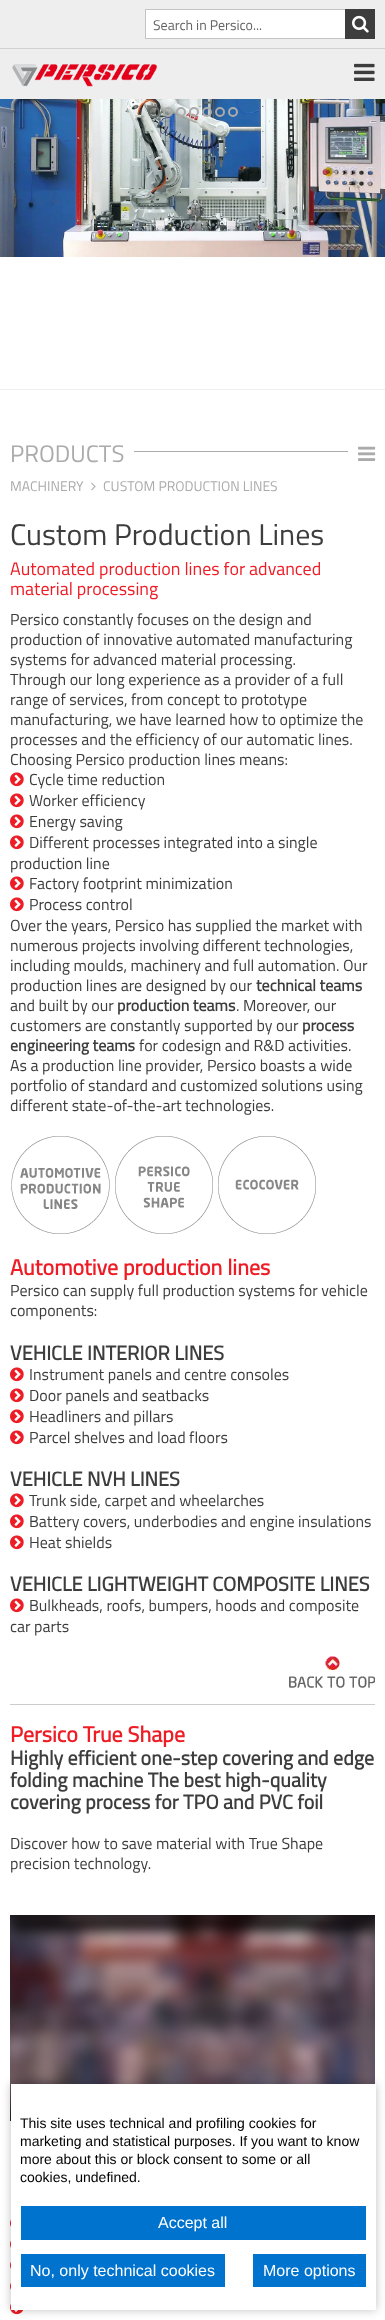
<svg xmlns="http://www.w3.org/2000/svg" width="385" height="2320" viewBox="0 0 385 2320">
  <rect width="100%" height="100%" fill="#eee"/>
  <path d="M0 48h385v1H0z" fill="#d1d1d1"/>
  <path d="M146 10h199v28H146z" fill="#fff"/>
  <path d="M145 9h200v1H145z" fill="#c4c4c4"/>
  <path d="M145 38h200v1H145z" fill="#c4c4c4"/>
  <path d="M145 9h1v30H145z" fill="#c4c4c4"/>
  <path d="M350 10h20v28H350z" fill="#3d3d3d"/>
  <path d="M345 9h30v1H345z" fill="#3d3d3d"/>
  <path d="M370 9h5v30H370z" fill="#3d3d3d"/>
  <path d="M345 38h30v1H345z" fill="#3d3d3d"/>
  <path d="M345 9h5v30H345z" fill="#3d3d3d"/>
  <image x="352" y="15" width="17" height="18" href="img/1.png"/>
  <image x="12" y="64" width="145" height="23" href="img/2.png"/>
  <image x="354" y="63" width="21" height="18" href="img/3.png"/>
  <path d="M0 257h385v132H0z" fill="#fff"/>
  <image x="0" y="99" width="385" height="158" href="img/4.png"/>
  <circle cx="154" cy="112" r="5" fill="none" stroke="#636363" stroke-width="2"/>
  <circle cx="168" cy="112" r="4" fill="none" stroke="#ababab" stroke-width="2"/>
  <circle cx="181" cy="112" r="4" fill="none" stroke="#ababab" stroke-width="2"/>
  <circle cx="194" cy="112" r="4" fill="none" stroke="#ababab" stroke-width="2"/>
  <circle cx="207" cy="112" r="4" fill="none" stroke="#ababab" stroke-width="2"/>
  <circle cx="220" cy="112" r="4" fill="none" stroke="#ababab" stroke-width="2"/>
  <circle cx="233" cy="112" r="4" fill="none" stroke="#ababab" stroke-width="2"/>
  <path d="M0 390h385v1930H0z" fill="#fff"/>
  <image x="358" y="446" width="18" height="15" href="img/5.png"/>
  <path d="M134 451h214v1H134z" fill="#ababab"/>
  <image x="91" y="482" width="5" height="9" href="img/6.png"/>
  <image x="10" y="772" width="14" height="15" href="img/7.png"/>
  <image x="10" y="793" width="14" height="15" href="img/7.png"/>
  <image x="10" y="814" width="14" height="15" href="img/7.png"/>
  <image x="10" y="835" width="14" height="15" href="img/7.png"/>
  <image x="10" y="876" width="14" height="15" href="img/7.png"/>
  <image x="10" y="897" width="14" height="15" href="img/7.png"/>
  <image x="11" y="1136" width="99" height="98" href="img/8.png"/>
  <image x="115" y="1136" width="98" height="98" href="img/9.png"/>
  <image x="218" y="1136" width="98" height="98" href="img/10.png"/>
  <image x="10" y="1367" width="14" height="15" href="img/7.png"/>
  <image x="10" y="1388" width="14" height="15" href="img/7.png"/>
  <image x="10" y="1409" width="14" height="15" href="img/7.png"/>
  <image x="10" y="1430" width="14" height="15" href="img/7.png"/>
  <image x="10" y="1493" width="14" height="15" href="img/7.png"/>
  <image x="10" y="1514" width="14" height="15" href="img/7.png"/>
  <image x="10" y="1535" width="14" height="15" href="img/7.png"/>
  <image x="10" y="1598" width="14" height="15" href="img/7.png"/>
  <image x="289" y="1656" width="86" height="32" href="img/11.png"/>
  <path d="M10 1704h365v1H10z" fill="#ccc"/>
  <image x="10" y="1915" width="365" height="206" href="img/12.png"/>
  <image x="10" y="2219" width="1" height="8" href="img/13.png"/>
  <image x="10" y="2240" width="1" height="8" href="img/13.png"/>
  <image x="10" y="2261" width="1" height="8" href="img/13.png"/>
  <image x="10" y="2282" width="1" height="8" href="img/13.png"/>
  <image x="10" y="2303" width="13" height="12" href="img/14.png"/>
  <path d="M11 2084h365v226H11z" fill="#00000040" filter="blur(5px)"/>
  <path d="M11 2084h365v226H11z" fill="#fff"/>
  <path d="M21 2206h345v34H21z" fill="#0073ce"/>
  <path d="M21 2254h204v33H21z" fill="#0073ce"/>
  <path d="M253 2254h113v33H253z" fill="#0073ce"/>
  <text x="153" y="30" font-family="Titillium Web" font-size="14" fill="#636363">Search in Persico...</text>
  <text x="10" y="462" font-family="Titillium Web" font-size="24" fill="#ababab">PRODUCTS</text>
  <g font-family="Titillium Web" font-size="14" fill="#ababab">
    <text x="10" y="491">MACHINERY</text>
    <text x="103" y="491">CUSTOM PRODUCTION LINES</text>
  </g>
  <text x="10" y="545" font-family="Titillium Web" font-size="30" fill="#3d3d3d">Custom Production Lines</text>
  <g font-family="Titillium Web" font-size="18" fill="#ee1c25">
    <text x="10" y="575">Automated production lines for advanced</text>
    <text x="10" y="595">material processing</text>
  </g>
  <g font-family="Titillium Web" font-size="16" fill="#3d3d3d">
    <text x="10" y="625">Persico constantly focuses on the design and</text>
    <text x="10" y="645">production of innovative automated manufacturing</text>
    <text x="10" y="665">systems for advanced material processing.</text>
    <text x="10" y="685">Through our long experience as a provider of a full</text>
    <text x="10" y="705">range of services, from concept to prototype</text>
    <text x="10" y="725">manufacturing, we have learned how to optimize the</text>
    <text x="10" y="745">processes and the efficiency of our automatic lines.</text>
    <text x="10" y="765">Choosing Persico production lines means:</text>
    <text x="29" y="785">Cycle time reduction</text>
    <text x="29" y="806">Worker efficiency</text>
    <text x="29" y="827">Energy saving</text>
    <text x="29" y="848">Different processes integrated into a single</text>
    <text x="10" y="869">production line</text>
    <text x="29" y="889">Factory footprint minimization</text>
    <text x="29" y="910">Process control</text>
    <text x="10" y="931">Over the years, Persico has supplied the market with</text>
    <text x="10" y="951">numerous projects involving different technologies,</text>
    <text x="10" y="971">including moulds, machinery and full automation. Our</text>
    <text x="10" y="991">production lines are designed by our</text>
  </g>
  <text x="256" y="991" font-family="Titillium Web" font-size="16" font-weight="bold" fill="#3d3d3d">technical teams</text>
  <text x="10" y="1011" font-family="Titillium Web" font-size="16" fill="#3d3d3d">and built by our</text>
  <text x="117" y="1011" font-family="Titillium Web" font-size="16" font-weight="bold" fill="#3d3d3d">production teams</text>
  <g font-family="Titillium Web" font-size="16" fill="#3d3d3d">
    <text x="236" y="1011">. Moreover, our</text>
    <text x="10" y="1031">customers are constantly supported by our</text>
  </g>
  <g font-family="Titillium Web" font-size="16" font-weight="bold" fill="#3d3d3d">
    <text x="302" y="1031">process</text>
    <text x="10" y="1051">engineering teams</text>
  </g>
  <g font-family="Titillium Web" font-size="16" fill="#3d3d3d">
    <text x="139" y="1051">for codesign and R&amp;D activities.</text>
    <text x="10" y="1071">As a production line provider, Persico boasts a wide</text>
    <text x="10" y="1091">portfolio of standard and customized solutions using</text>
    <text x="10" y="1111">different state-of-the-art technologies.</text>
  </g>
  <text x="10" y="1275" font-family="Titillium Web" font-size="22" font-weight="bold" fill="#ee1c25">Automotive production lines</text>
  <g font-family="Titillium Web" font-size="16" fill="#3d3d3d">
    <text x="10" y="1296">Persico can supply full production systems for vehicle</text>
    <text x="10" y="1316">components:</text>
  </g>
  <text x="10" y="1360" font-family="Titillium Web" font-size="20" font-weight="bold" fill="#3d3d3d">VEHICLE INTERIOR LINES</text>
  <g font-family="Titillium Web" font-size="16" fill="#3d3d3d">
    <text x="29" y="1380">Instrument panels and centre consoles</text>
    <text x="29" y="1401">Door panels and seatbacks</text>
    <text x="29" y="1422">Headliners and pillars</text>
    <text x="29" y="1443">Parcel shelves and load floors</text>
  </g>
  <text x="10" y="1486" font-family="Titillium Web" font-size="20" font-weight="bold" fill="#3d3d3d">VEHICLE NVH LINES</text>
  <g font-family="Titillium Web" font-size="16" fill="#3d3d3d">
    <text x="29" y="1506">Trunk side, carpet and wheelarches</text>
    <text x="29" y="1527">Battery covers, underbodies and engine insulations</text>
    <text x="29" y="1548">Heat shields</text>
  </g>
  <text x="10" y="1591" font-family="Titillium Web" font-size="20" font-weight="bold" fill="#3d3d3d">VEHICLE LIGHTWEIGHT COMPOSITE LINES</text>
  <g font-family="Titillium Web" font-size="16" fill="#3d3d3d">
    <text x="29" y="1611">Bulkheads, roofs, bumpers, hoods and composite</text>
    <text x="10" y="1632">car parts</text>
  </g>
  <text x="10" y="1742" font-family="Titillium Web" font-size="22" font-weight="bold" fill="#ee1c25">Persico True Shape</text>
  <g font-family="Titillium Web" font-size="20" font-weight="bold" fill="#3d3d3d">
    <text x="10" y="1765">Highly efficient one-step covering and edge</text>
    <text x="10" y="1787">folding machine The best high-quality</text>
    <text x="10" y="1809">covering process for TPO and PVC foil</text>
  </g>
  <g font-family="Titillium Web" font-size="16" fill="#3d3d3d">
    <text x="10" y="1849">Discover how to save material with True Shape</text>
    <text x="10" y="1869">precision technology.</text>
  </g>
  <g font-family="Liberation Sans" font-size="14" fill="#000">
    <text x="20" y="2128">This site uses technical and profiling cookies for</text>
    <text x="20" y="2146">marketing and statistical purposes. If you want to know</text>
    <text x="20" y="2164">more about this or block consent to some or all</text>
    <text x="20" y="2182">cookies, undefined.</text>
  </g>
  <g font-family="Liberation Sans" font-size="16" fill="#fff">
    <text x="158" y="2228">Accept all</text>
    <text x="30" y="2276">No, only technical cookies</text>
    <text x="263" y="2276">More options</text>
  </g>
</svg>
